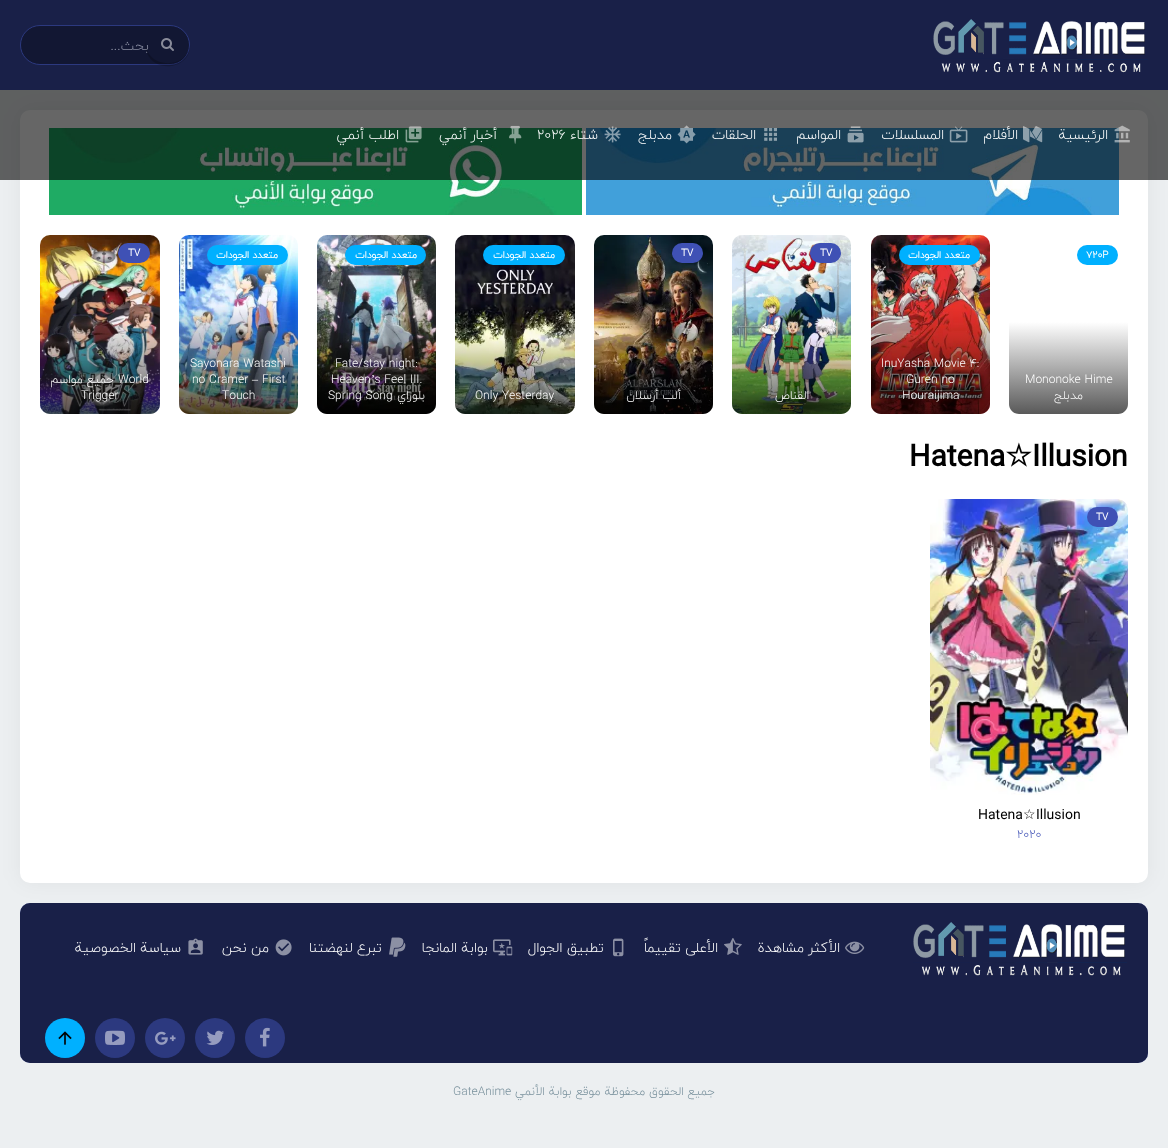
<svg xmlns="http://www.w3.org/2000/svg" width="1168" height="1148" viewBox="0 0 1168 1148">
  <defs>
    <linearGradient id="g1" gradientUnits="userSpaceOnUse" x1="1069" y1="322" x2="1069" y2="414"><stop offset="0" stop-color="#fff"/><stop offset="1" stop-color="#595959"/></linearGradient>
    <linearGradient id="g2" gradientUnits="userSpaceOnUse" x1="931" y1="306" x2="931" y2="414"><stop offset="0" stop-color="#000" stop-opacity="0"/><stop offset="1" stop-color="#000" stop-opacity="0.65"/></linearGradient>
    <linearGradient id="g3" gradientUnits="userSpaceOnUse" x1="792" y1="338" x2="792" y2="414"><stop offset="0" stop-color="#000" stop-opacity="0"/><stop offset="1" stop-color="#000" stop-opacity="0.65"/></linearGradient>
    <linearGradient id="g4" gradientUnits="userSpaceOnUse" x1="654" y1="338" x2="654" y2="414"><stop offset="0" stop-color="#000" stop-opacity="0"/><stop offset="1" stop-color="#000" stop-opacity="0.65"/></linearGradient>
    <linearGradient id="g5" gradientUnits="userSpaceOnUse" x1="515" y1="338" x2="515" y2="414"><stop offset="0" stop-color="#000" stop-opacity="0"/><stop offset="1" stop-color="#000" stop-opacity="0.65"/></linearGradient>
    <linearGradient id="g6" gradientUnits="userSpaceOnUse" x1="377" y1="306" x2="377" y2="414"><stop offset="0" stop-color="#000" stop-opacity="0"/><stop offset="1" stop-color="#000" stop-opacity="0.65"/></linearGradient>
    <linearGradient id="g7" gradientUnits="userSpaceOnUse" x1="239" y1="306" x2="239" y2="414"><stop offset="0" stop-color="#000" stop-opacity="0"/><stop offset="1" stop-color="#000" stop-opacity="0.65"/></linearGradient>
    <linearGradient id="g8" gradientUnits="userSpaceOnUse" x1="100" y1="322" x2="100" y2="414"><stop offset="0" stop-color="#000" stop-opacity="0"/><stop offset="1" stop-color="#000" stop-opacity="0.65"/></linearGradient>
  </defs>
  <rect width="100%" height="100%" fill="#eceff1"/>
  <rect x="20" y="903" width="1128" height="160" rx="10" fill="#3f51b5"/>
  <rect x="20" y="903" width="1128" height="160" rx="10" fill="#00000099"/>
  <rect x="20" y="110" width="1128" height="773" rx="10" fill="#0000000d" filter="blur(10px)"/>
  <path d="M0 0h1168v90H0z" fill="#3f51b5"/>
  <rect x="20" y="110" width="1128" height="773" rx="10" fill="#fff"/>
  <image x="586" y="128" width="533" height="87" href="img/12.png"/>
  <image x="49" y="128" width="533" height="87" href="img/13.png"/>
  <path d="M0 0h1168v180H0z" fill="#00000099"/>
  <image x="933" y="19" width="215" height="54" href="img/1.png"/>
  <rect x="20.5" y="25.5" width="169" height="39" rx="19.5" fill="#121733" stroke="#2c397f"/>
  <image x="1114" y="125" width="16" height="18" href="img/3.png"/>
  <image x="1023" y="126" width="20" height="17" href="img/4.png"/>
  <image x="949" y="126" width="19" height="17" href="img/5.png"/>
  <image x="847" y="126" width="17" height="17" href="img/6.png"/>
  <image x="764" y="128" width="13" height="13" href="img/7.png"/>
  <image x="677" y="125" width="19" height="19" href="img/8.png"/>
  <image x="604" y="126" width="17" height="17" href="img/9.png"/>
  <image x="509" y="125" width="13" height="19" href="img/10.png"/>
  <image x="405" y="126" width="17" height="17" href="img/11.png"/>
  <rect x="1077" y="245" width="41" height="20" rx="10" fill="#00b0ff"/>
  <path d="M1009 322H1128V404C1128 409.5 1123.5 414 1118 414H1019C1013.5 414 1009 409.5 1009 404Z" fill="url(#g1)"/>
  <image x="871" y="235" width="119" height="179" href="img/14.png"/>
  <rect x="899" y="245" width="81" height="20" rx="10" fill="#00b0ff"/>
  <path d="M871 306H990V404C990 409.5 985.5 414 980 414H881C875.5 414 871 409.5 871 404Z" fill="url(#g2)"/>
  <image x="732" y="235" width="119" height="179" href="img/15.png"/>
  <rect x="810" y="243" width="31" height="20" rx="10" fill="#3f51b5"/>
  <path d="M732 338H851V404C851 409.5 846.5 414 841 414H742C736.5 414 732 409.5 732 404Z" fill="url(#g3)"/>
  <image x="594" y="235" width="119" height="179" href="img/16.png"/>
  <rect x="672" y="243" width="31" height="20" rx="10" fill="#3f51b5"/>
  <path d="M594 338H713V404C713 409.5 708.5 414 703 414H604C598.5 414 594 409.5 594 404Z" fill="url(#g4)"/>
  <image x="455" y="235" width="120" height="179" href="img/17.png"/>
  <rect x="483" y="245" width="82" height="20" rx="10" fill="#00b0ff"/>
  <path d="M455 338H575V404C575 409.5 570.5 414 565 414H465C459.5 414 455 409.5 455 404Z" fill="url(#g5)"/>
  <image x="317" y="235" width="119" height="179" href="img/18.png"/>
  <rect x="345" y="245" width="81" height="20" rx="10" fill="#00b0ff"/>
  <path d="M317 306H436V404C436 409.5 431.5 414 426 414H327C321.5 414 317 409.5 317 404Z" fill="url(#g6)"/>
  <image x="179" y="235" width="119" height="179" href="img/19.png"/>
  <rect x="207" y="245" width="81" height="20" rx="10" fill="#00b0ff"/>
  <path d="M179 306H298V404C298 409.5 293.5 414 288 414H189C183.5 414 179 409.5 179 404Z" fill="url(#g7)"/>
  <image x="40" y="235" width="120" height="179" href="img/20.png"/>
  <rect x="118" y="243" width="32" height="20" rx="10" fill="#3f51b5"/>
  <path d="M40 322H160V404C160 409.5 155.5 414 150 414H50C44.5 414 40 409.5 40 404Z" fill="url(#g8)"/>
  <image x="930" y="499" width="198" height="296" href="img/21.png"/>
  <rect x="1087" y="507" width="31" height="20" rx="10" fill="#3f51b5"/>
  <image x="913" y="922" width="214" height="54" href="img/22.png"/>
  <image x="845" y="941" width="20" height="13" href="img/23.png"/>
  <image x="724" y="938" width="18" height="17" href="img/24.png"/>
  <image x="613" y="938" width="11" height="19" href="img/25.png"/>
  <image x="493" y="939" width="20" height="17" href="img/26.png"/>
  <image x="389" y="937" width="17" height="20" href="img/27.png"/>
  <image x="275" y="939" width="17" height="17" href="img/28.png"/>
  <image x="188" y="938" width="15" height="17" href="img/29.png"/>
  <circle cx="265" cy="1038" r="20" fill="#2c397f"/>
  <image x="260" y="1027" width="10" height="20" href="img/30.png"/>
  <circle cx="215" cy="1038" r="20" fill="#2c397f"/>
  <image x="206" y="1030" width="18" height="15" href="img/31.png"/>
  <circle cx="165" cy="1038" r="20" fill="#2c397f"/>
  <image x="155" y="1031" width="21" height="14" href="img/32.png"/>
  <circle cx="115" cy="1038" r="20" fill="#2c397f"/>
  <image x="105" y="1030" width="20" height="15" href="img/33.png"/>
  <circle cx="65" cy="1038" r="20" fill="#00b0ff"/>
  <image x="58" y="1031" width="14" height="14" href="img/34.png"/>
  <text x="149" y="50" font-family="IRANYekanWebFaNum" font-size="14" font-weight="300" direction="rtl" fill="#8c90a4">بحث...</text>
  <path d="M146 41C145 45 145 50 147 53C156 75 192 68 190 44C188 71 144 69 146 41Z" fill="#00000033"/>
  <image x="161" y="38" width="13" height="13" href="img/2.png"/>
  <g font-family="IRANYekanWebFaNum" font-size="14" font-weight="300" direction="rtl" fill="#fff">
    <text x="1108" y="139">الرئيسية</text>
    <text x="1018" y="139">الأفلام</text>
    <text x="944" y="139">المسلسلات</text>
    <text x="841" y="139">المواسم</text>
    <text x="756" y="139">الحلقات</text>
    <text x="672" y="139">مدبلج</text>
    <text x="598" y="139">شتاء</text>
  </g>
  <text x="537" y="139" font-family="IRANYekanWebFaNum" font-size="14" font-weight="300" fill="#fff">2026</text>
  <g font-family="IRANYekanWebFaNum" font-size="14" font-weight="300" direction="rtl" fill="#fff">
    <text x="497" y="139">أخبار أنمي</text>
    <text x="399" y="139">اطلب أنمي</text>
  </g>
  <text x="1086" y="258" font-family="'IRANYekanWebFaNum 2'" font-size="10" font-weight="bold" fill="#fff">720P</text>
  <text x="1025" y="383" font-family="IRANYekanWebFaNum" font-size="12" font-weight="300" fill="#fff">Mononoke Hime</text>
  <text x="1083" y="399" font-family="IRANYekanWebFaNum" font-size="12" font-weight="300" direction="rtl" fill="#fff">مدبلج</text>
  <text x="970" y="258" font-family="'IRANYekanWebFaNum 2'" font-size="10" font-weight="bold" direction="rtl" fill="#fff">متعدد الجودات</text>
  <g font-family="IRANYekanWebFaNum" font-size="12" font-weight="300" fill="#fff">
    <text x="881" y="367">InuYasha Movie 4:</text>
    <text x="906" y="383">Guren no</text>
    <text x="902" y="399">Houraijima</text>
  </g>
  <text x="820" y="256" font-family="'IRANYekanWebFaNum 2'" font-size="10" font-weight="bold" fill="#fff">TV</text>
  <text x="809" y="399" font-family="IRANYekanWebFaNum" font-size="12" font-weight="300" direction="rtl" fill="#fff">القناص</text>
  <text x="681" y="256" font-family="'IRANYekanWebFaNum 2'" font-size="10" font-weight="bold" fill="#fff">TV</text>
  <text x="681" y="399" font-family="IRANYekanWebFaNum" font-size="12" font-weight="300" direction="rtl" fill="#fff">ألب أرسلان</text>
  <text x="555" y="258" font-family="'IRANYekanWebFaNum 2'" font-size="10" font-weight="bold" direction="rtl" fill="#fff">متعدد الجودات</text>
  <text x="475" y="399" font-family="IRANYekanWebFaNum" font-size="12" font-weight="300" fill="#fff">Only Yesterday</text>
  <text x="417" y="258" font-family="'IRANYekanWebFaNum 2'" font-size="10" font-weight="bold" direction="rtl" fill="#fff">متعدد الجودات</text>
  <g font-family="IRANYekanWebFaNum" font-size="12" font-weight="300" fill="#fff">
    <text x="335" y="367">Fate/stay night:</text>
    <text x="331" y="383">Heaven s Feel III.</text>
  </g>
  <text x="371" y="383" font-family="Liberation Serif" font-size="12" fill="#fff">’</text>
  <text x="425" y="399" font-family="IRANYekanWebFaNum" font-size="12" font-weight="300" direction="rtl" fill="#fff">بلوراي</text>
  <text x="328" y="399" font-family="IRANYekanWebFaNum" font-size="12" font-weight="300" fill="#fff">Spring Song</text>
  <text x="278" y="258" font-family="'IRANYekanWebFaNum 2'" font-size="10" font-weight="bold" direction="rtl" fill="#fff">متعدد الجودات</text>
  <g font-family="IRANYekanWebFaNum" font-size="12" font-weight="300" fill="#fff">
    <text x="190" y="367">Sayonara Watashi</text>
    <text x="262" y="383">First</text>
  </g>
  <text x="252" y="383" font-family="Liberation Serif" font-size="12" fill="#fff">–</text>
  <g font-family="IRANYekanWebFaNum" font-size="12" font-weight="300" fill="#fff">
    <text x="192" y="383">no Cramer</text>
    <text x="222" y="399">Touch</text>
  </g>
  <text x="128" y="256" font-family="'IRANYekanWebFaNum 2'" font-size="10" font-weight="bold" fill="#fff">TV</text>
  <text x="118" y="383" font-family="IRANYekanWebFaNum" font-size="12" font-weight="300" fill="#fff">World</text>
  <text x="114" y="383" font-family="IRANYekanWebFaNum" font-size="12" font-weight="300" direction="rtl" fill="#fff">جميع مواسم</text>
  <text x="81" y="399" font-family="IRANYekanWebFaNum" font-size="12" font-weight="300" fill="#fff">Trigger</text>
  <text x="1032" y="466" font-family="IRANYekanWebFaNum" font-size="30" font-weight="bold" fill="#000">Illusion</text>
  <text x="1005" y="466" font-family="DejaVu Sans" font-size="30" font-weight="bold" fill="#000">☆</text>
  <text x="909" y="466" font-family="IRANYekanWebFaNum" font-size="30" font-weight="bold" fill="#000">Hatena</text>
  <text x="1096" y="520" font-family="'IRANYekanWebFaNum 2'" font-size="10" font-weight="bold" fill="#fff">TV</text>
  <text x="1036" y="819" font-family="IRANYekanWebFaNum" font-size="14" fill="#000">Illusion</text>
  <text x="1023" y="819" font-family="DejaVu Sans" font-size="14" fill="#000">☆</text>
  <text x="978" y="819" font-family="IRANYekanWebFaNum" font-size="14" fill="#000">Hatena</text>
  <text x="1017" y="838" font-family="IRANYekanWebFaNum" font-size="12" font-weight="300" fill="#3f51b5">2020</text>
  <g font-family="IRANYekanWebFaNum" font-size="14" font-weight="300" direction="rtl" fill="#fff">
    <text x="840" y="952">الأكثر مشاهدة</text>
    <text x="718" y="952">الأعلى تقييماً</text>
    <text x="604" y="952">تطبيق الجوال</text>
    <text x="488" y="952">بوابة المانجا</text>
    <text x="382" y="952">تبرع لنهضتنا</text>
    <text x="269" y="952">من نحن</text>
    <text x="181" y="952">سياسة الخصوصية</text>
  </g>
  <text x="715" y="1095" font-family="IRANYekanWebFaNum" font-size="12" font-weight="300" direction="rtl" fill="#78909c">جميع الحقوق محفوظة موقع بوابة الأنمي</text>
  <text x="453" y="1095" font-family="IRANYekanWebFaNum" font-size="12" font-weight="300" fill="#78909c">GateAnime</text>
</svg>
